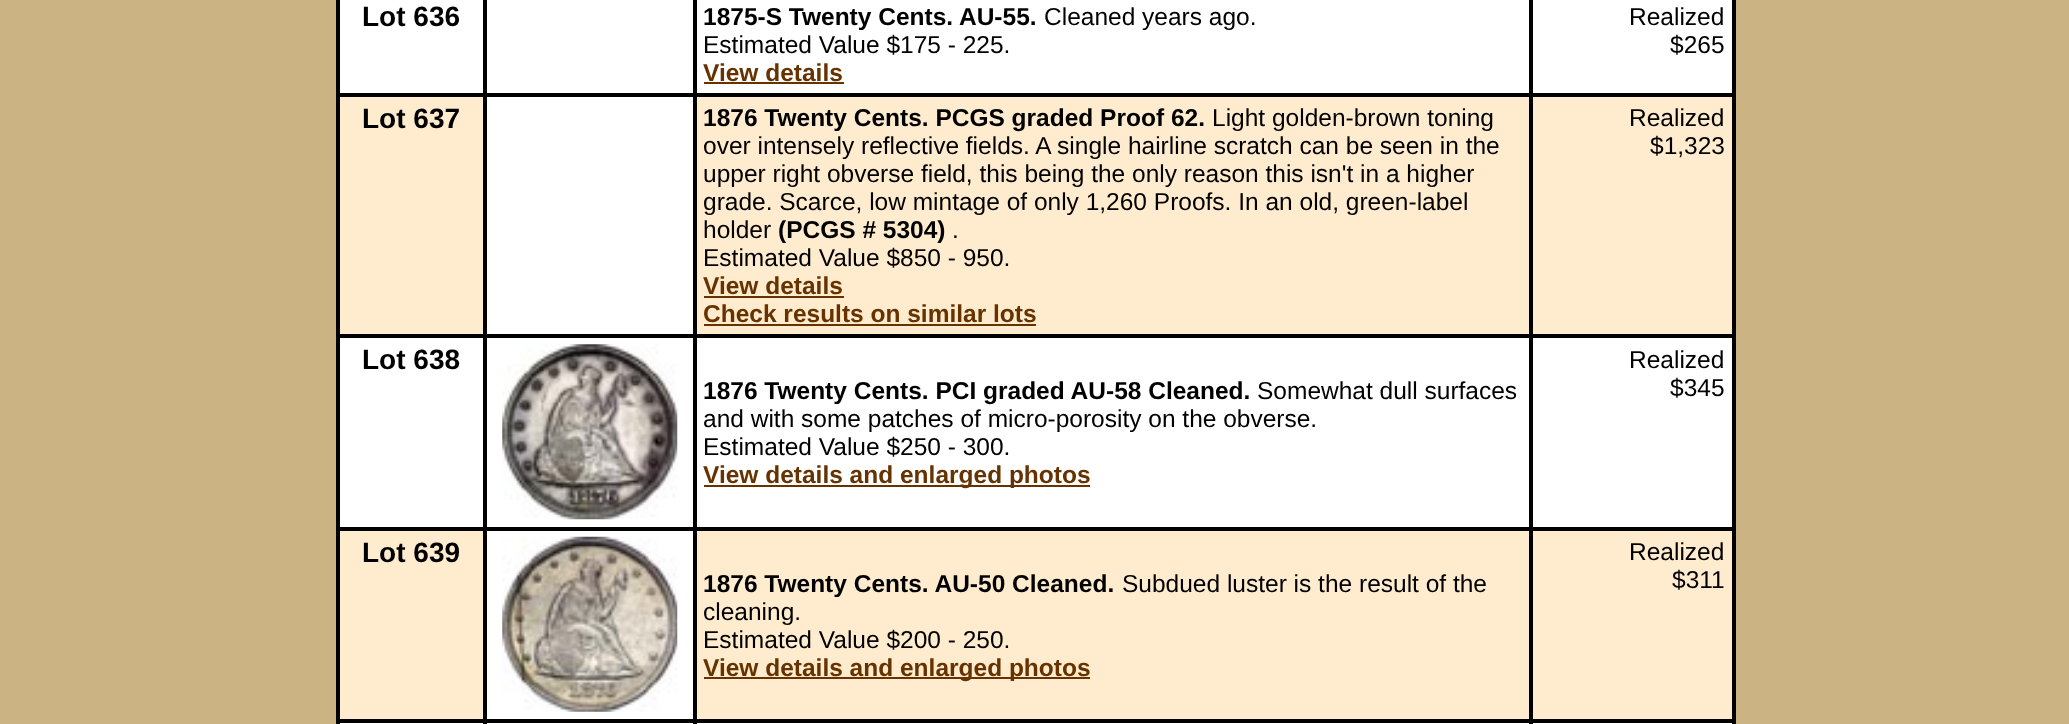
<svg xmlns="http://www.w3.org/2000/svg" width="2069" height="724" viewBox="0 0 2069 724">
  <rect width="100%" height="100%" fill="#ccb384"/>
  <path d="M340 0h1392v724H340z" fill="#fff"/>
  <path d="M337 -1h1398v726H337z" fill="none" stroke="#000" stroke-width="2"/>
  <path d="M339 -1h145v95H339z" fill="none" stroke="#000" stroke-width="2"/>
  <path d="M486 -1h208v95H486z" fill="none" stroke="#000" stroke-width="2"/>
  <path d="M696 -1h834v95H696z" fill="none" stroke="#000" stroke-width="2"/>
  <path d="M704 82h140v2H704z" fill="#630"/>
  <path d="M1532 -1h201v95H1532z" fill="none" stroke="#000" stroke-width="2"/>
  <path d="M340 97h1392v237H340z" fill="#ffebcd"/>
  <path d="M339 96h145v239H339z" fill="none" stroke="#000" stroke-width="2"/>
  <path d="M486 96h208v239H486z" fill="#fff" stroke="#000" stroke-width="2"/>
  <path d="M696 96h834v239H696z" fill="none" stroke="#000" stroke-width="2"/>
  <path d="M704 296h140v2H704z" fill="#630"/>
  <path d="M704 324h332v2H704z" fill="#630"/>
  <path d="M1532 96h201v239H1532z" fill="none" stroke="#000" stroke-width="2"/>
  <path d="M339 337h145v191H339z" fill="none" stroke="#000" stroke-width="2"/>
  <path d="M486 337h208v191H486z" fill="none" stroke="#000" stroke-width="2"/>
  <image x="502" y="344" width="176" height="176" href="img/1.png"/>
  <path d="M1532 337h201v191H1532z" fill="none" stroke="#000" stroke-width="2"/>
  <path d="M696 337h834v191H696z" fill="none" stroke="#000" stroke-width="2"/>
  <path d="M704 485h386v2H704z" fill="#630"/>
  <path d="M340 531h1392v188H340z" fill="#ffebcd"/>
  <path d="M339 530h145v190H339z" fill="none" stroke="#000" stroke-width="2"/>
  <path d="M486 530h208v190H486z" fill="#fff" stroke="#000" stroke-width="2"/>
  <image x="502" y="536" width="176" height="176" href="img/2.png"/>
  <path d="M1532 530h201v190H1532z" fill="none" stroke="#000" stroke-width="2"/>
  <path d="M696 530h834v190H696z" fill="none" stroke="#000" stroke-width="2"/>
  <path d="M704 677h386v2H704z" fill="#630"/>
  <path d="M339 722h145v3H339z" fill="none" stroke="#000" stroke-width="2"/>
  <path d="M486 722h208v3H486z" fill="none" stroke="#000" stroke-width="2"/>
  <path d="M696 722h834v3H696z" fill="none" stroke="#000" stroke-width="2"/>
  <path d="M1532 722h201v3H1532z" fill="none" stroke="#000" stroke-width="2"/>
  <text x="362" y="26" font-family="Liberation Sans" font-size="28" font-weight="bold" fill="#000">Lot 636</text>
  <text x="703" y="25" font-family="Liberation Sans" font-size="24.5" font-weight="bold" fill="#000">1875-S Twenty Cents. AU-55.</text>
  <g font-family="Liberation Sans" font-size="24.5" fill="#000">
    <text x="1044" y="25">Cleaned years ago.</text>
    <text x="703" y="53">Estimated Value $175 - 225.</text>
  </g>
  <text x="703" y="81" font-family="Liberation Sans" font-size="24.5" font-weight="bold" fill="#630">View details</text>
  <g font-family="Liberation Sans" font-size="24.5" fill="#000">
    <text x="1629" y="25">Realized</text>
    <text x="1670" y="53">$265</text>
  </g>
  <text x="362" y="128" font-family="Liberation Sans" font-size="28" font-weight="bold" fill="#000">Lot 637</text>
  <text x="703" y="126" font-family="Liberation Sans" font-size="24.5" font-weight="bold" fill="#000">1876 Twenty Cents. PCGS graded Proof 62.</text>
  <g font-family="Liberation Sans" font-size="24.5" fill="#000">
    <text x="1212" y="126">Light golden-brown toning</text>
    <text x="703" y="154">over intensely reflective fields. A single hairline scratch can be seen in the</text>
    <text x="703" y="182">upper right obverse field, this being the only reason this isn't in a higher</text>
    <text x="703" y="210">grade. Scarce, low mintage of only 1,260 Proofs. In an old, green-label</text>
    <text x="703" y="238">holder</text>
  </g>
  <text x="778" y="238" font-family="Liberation Sans" font-size="24.5" font-weight="bold" fill="#000">(PCGS # 5304)</text>
  <g font-family="Liberation Sans" font-size="24.5" fill="#000">
    <text x="952" y="238">.</text>
    <text x="703" y="266">Estimated Value $850 - 950.</text>
  </g>
  <g font-family="Liberation Sans" font-size="24.5" font-weight="bold" fill="#630">
    <text x="703" y="294">View details</text>
    <text x="703" y="322">Check results on similar lots</text>
  </g>
  <g font-family="Liberation Sans" font-size="24.5" fill="#000">
    <text x="1629" y="126">Realized</text>
    <text x="1650" y="154">$1,323</text>
  </g>
  <text x="362" y="369" font-family="Liberation Sans" font-size="28" font-weight="bold" fill="#000">Lot 638</text>
  <g font-family="Liberation Sans" font-size="24.5" fill="#000">
    <text x="1629" y="368">Realized</text>
    <text x="1670" y="396">$345</text>
  </g>
  <text x="703" y="399" font-family="Liberation Sans" font-size="24.5" font-weight="bold" fill="#000">1876 Twenty Cents. PCI graded AU-58 Cleaned.</text>
  <g font-family="Liberation Sans" font-size="24.5" fill="#000">
    <text x="1257" y="399">Somewhat dull surfaces</text>
    <text x="703" y="427">and with some patches of micro-porosity on the obverse.</text>
    <text x="703" y="455">Estimated Value $250 - 300.</text>
  </g>
  <text x="703" y="483" font-family="Liberation Sans" font-size="24.5" font-weight="bold" fill="#630">View details and enlarged photos</text>
  <text x="362" y="562" font-family="Liberation Sans" font-size="28" font-weight="bold" fill="#000">Lot 639</text>
  <g font-family="Liberation Sans" font-size="24.5" fill="#000">
    <text x="1629" y="560">Realized</text>
    <text x="1672" y="588">$311</text>
  </g>
  <text x="703" y="592" font-family="Liberation Sans" font-size="24.5" font-weight="bold" fill="#000">1876 Twenty Cents. AU-50 Cleaned.</text>
  <g font-family="Liberation Sans" font-size="24.5" fill="#000">
    <text x="1122" y="592">Subdued luster is the result of the</text>
    <text x="703" y="620">cleaning.</text>
    <text x="703" y="648">Estimated Value $200 - 250.</text>
  </g>
  <text x="703" y="676" font-family="Liberation Sans" font-size="24.5" font-weight="bold" fill="#630">View details and enlarged photos</text>
</svg>
